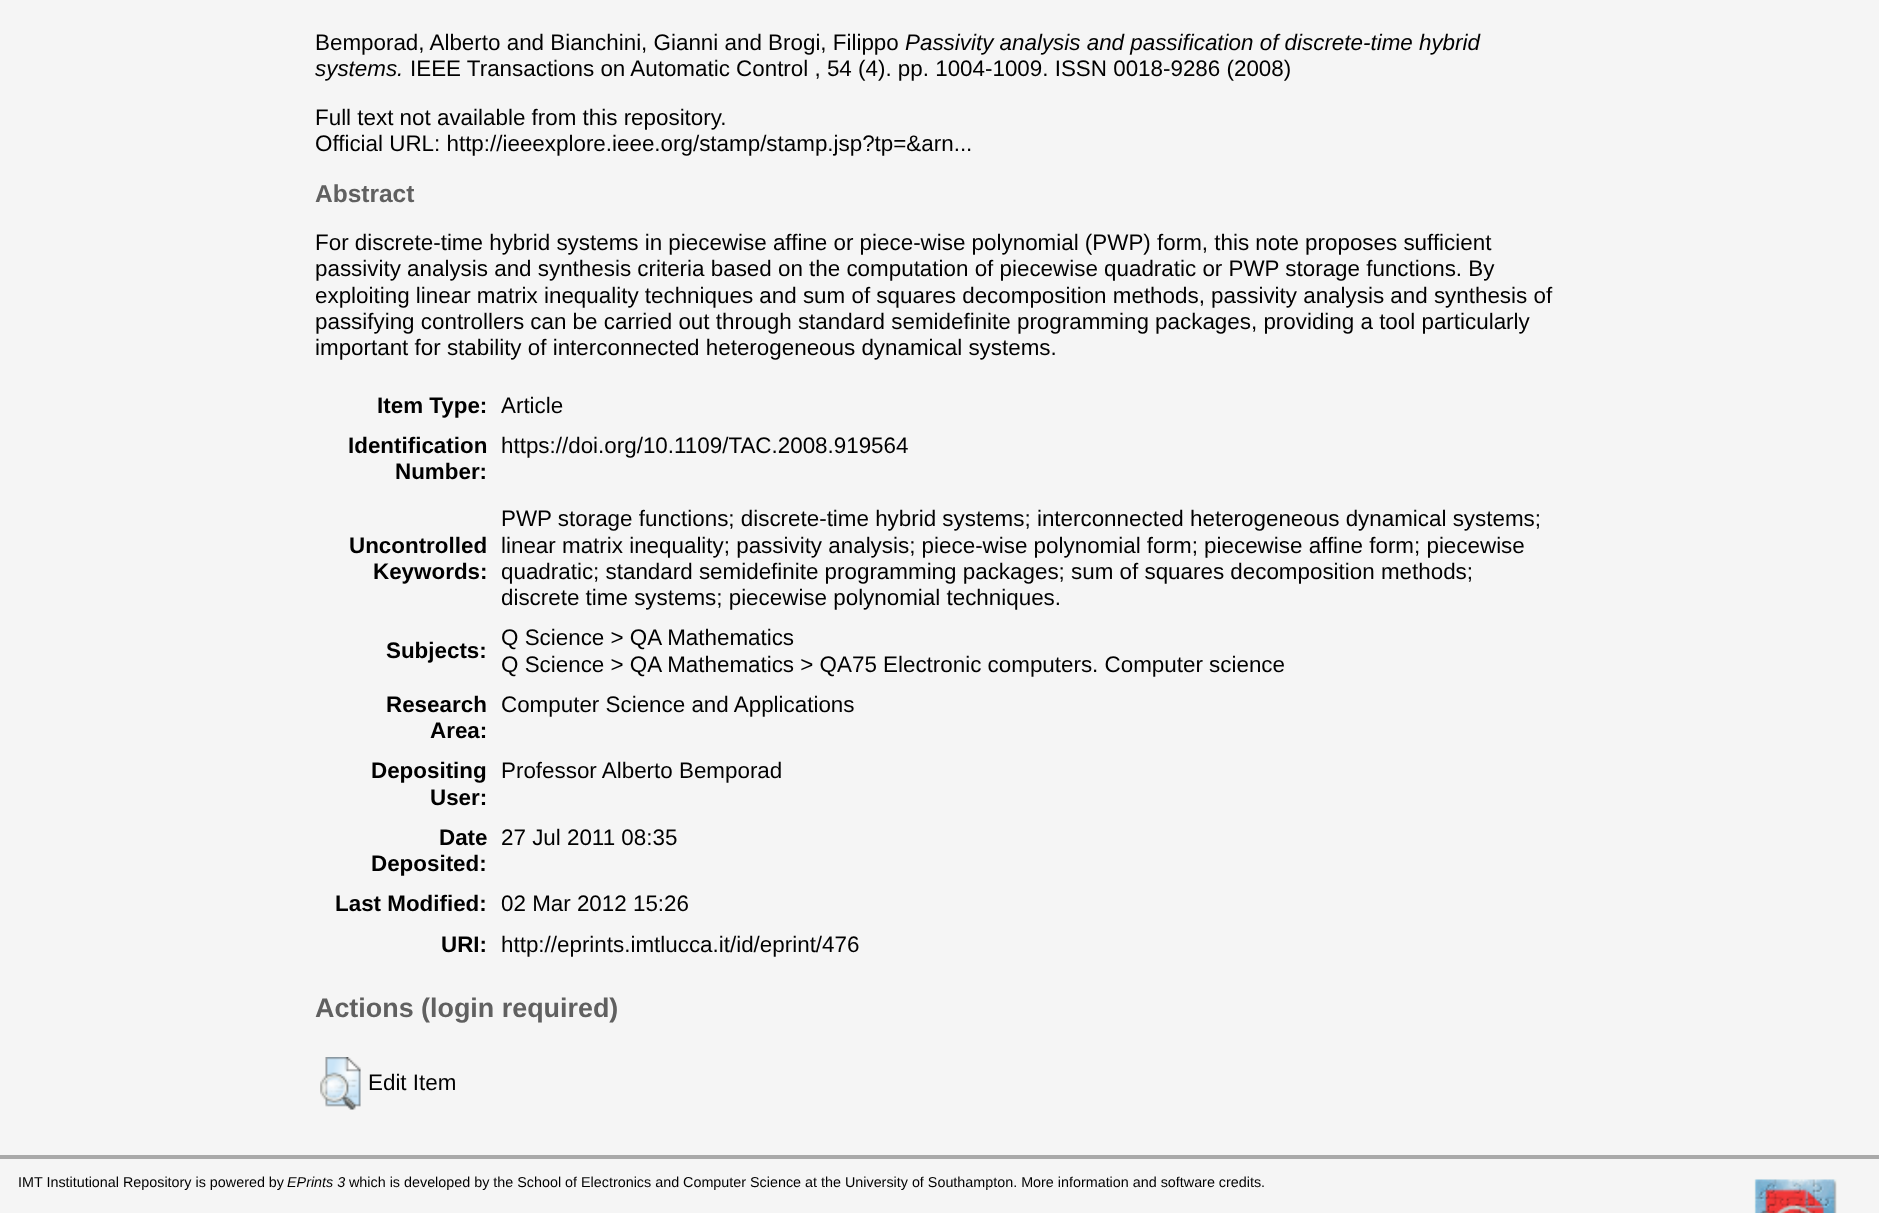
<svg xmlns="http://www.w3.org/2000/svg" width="1879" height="1213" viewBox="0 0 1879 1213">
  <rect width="100%" height="100%" fill="#f5f5f5"/>
  <image x="320" y="1057" width="41" height="53" href="img/1.png"/>
  <path d="M0 1155h1879v4H0z" fill="#a9a9a9"/>
  <image x="1754" y="1179" width="83" height="34" href="img/2.png"/>
  <text x="315" y="50" font-family="Liberation Sans" font-size="22.4" fill="#000">Bemporad, Alberto and Bianchini, Gianni and Brogi, Filippo</text>
  <g font-family="Liberation Sans" font-size="22.4" font-style="italic" fill="#000">
    <text x="905" y="50">Passivity analysis and passification of discrete-time hybrid</text>
    <text x="315" y="76">systems.</text>
  </g>
  <g font-family="Liberation Sans" font-size="22.4" fill="#000">
    <text x="410" y="76">IEEE Transactions on Automatic Control , 54 (4). pp. 1004-1009. ISSN 0018-9286 (2008)</text>
    <text x="315" y="125">Full text not available from this repository.</text>
    <text x="315" y="151">Official URL: http://ieeexplore.ieee.org/stamp/stamp.jsp?tp=&amp;arn...</text>
  </g>
  <text x="315" y="202" font-family="Liberation Sans" font-size="24.5" font-weight="bold" fill="#606060">Abstract</text>
  <g font-family="Liberation Sans" font-size="22.4" fill="#000">
    <text x="315" y="250">For discrete-time hybrid systems in piecewise affine or piece-wise polynomial (PWP) form, this note proposes sufficient</text>
    <text x="315" y="276">passivity analysis and synthesis criteria based on the computation of piecewise quadratic or PWP storage functions. By</text>
    <text x="315" y="303">exploiting linear matrix inequality techniques and sum of squares decomposition methods, passivity analysis and synthesis of</text>
    <text x="315" y="329">passifying controllers can be carried out through standard semidefinite programming packages, providing a tool particularly</text>
    <text x="315" y="355">important for stability of interconnected heterogeneous dynamical systems.</text>
  </g>
  <text x="377" y="413" font-family="Liberation Sans" font-size="22.4" font-weight="bold" fill="#000">Item Type:</text>
  <text x="501" y="413" font-family="Liberation Sans" font-size="22.4" fill="#000">Article</text>
  <g font-family="Liberation Sans" font-size="22.4" font-weight="bold" fill="#000">
    <text x="348" y="453">Identification</text>
    <text x="395" y="479">Number:</text>
  </g>
  <text x="501" y="453" font-family="Liberation Sans" font-size="22.4" fill="#000">https://doi.org/10.1109/TAC.2008.919564</text>
  <g font-family="Liberation Sans" font-size="22.4" font-weight="bold" fill="#000">
    <text x="349" y="553">Uncontrolled</text>
    <text x="373" y="579">Keywords:</text>
  </g>
  <g font-family="Liberation Sans" font-size="22.4" fill="#000">
    <text x="501" y="526">PWP storage functions; discrete-time hybrid systems; interconnected heterogeneous dynamical systems;</text>
    <text x="501" y="553">linear matrix inequality; passivity analysis; piece-wise polynomial form; piecewise affine form; piecewise</text>
    <text x="501" y="579">quadratic; standard semidefinite programming packages; sum of squares decomposition methods;</text>
    <text x="501" y="605">discrete time systems; piecewise polynomial techniques.</text>
  </g>
  <text x="386" y="658" font-family="Liberation Sans" font-size="22.4" font-weight="bold" fill="#000">Subjects:</text>
  <g font-family="Liberation Sans" font-size="22.4" fill="#000">
    <text x="501" y="645">Q Science &gt; QA Mathematics</text>
    <text x="501" y="672">Q Science &gt; QA Mathematics &gt; QA75 Electronic computers. Computer science</text>
  </g>
  <g font-family="Liberation Sans" font-size="22.4" font-weight="bold" fill="#000">
    <text x="386" y="712">Research</text>
    <text x="430" y="738">Area:</text>
  </g>
  <text x="501" y="712" font-family="Liberation Sans" font-size="22.4" fill="#000">Computer Science and Applications</text>
  <g font-family="Liberation Sans" font-size="22.4" font-weight="bold" fill="#000">
    <text x="371" y="778">Depositing</text>
    <text x="430" y="805">User:</text>
  </g>
  <text x="501" y="778" font-family="Liberation Sans" font-size="22.4" fill="#000">Professor Alberto Bemporad</text>
  <g font-family="Liberation Sans" font-size="22.4" font-weight="bold" fill="#000">
    <text x="439" y="845">Date</text>
    <text x="371" y="871">Deposited:</text>
  </g>
  <text x="501" y="845" font-family="Liberation Sans" font-size="22.4" fill="#000">27 Jul 2011 08:35</text>
  <text x="335" y="911" font-family="Liberation Sans" font-size="22.4" font-weight="bold" fill="#000">Last Modified:</text>
  <text x="501" y="911" font-family="Liberation Sans" font-size="22.4" fill="#000">02 Mar 2012 15:26</text>
  <text x="441" y="952" font-family="Liberation Sans" font-size="22.4" font-weight="bold" fill="#000">URI:</text>
  <text x="501" y="952" font-family="Liberation Sans" font-size="22.4" fill="#000">http://eprints.imtlucca.it/id/eprint/476</text>
  <text x="315" y="1017" font-family="Liberation Sans" font-size="26.9" font-weight="bold" fill="#606060">Actions (login required)</text>
  <text x="368" y="1090" font-family="Liberation Sans" font-size="22.4" fill="#000">Edit Item</text>
  <text x="18" y="1187" font-family="Liberation Sans" font-size="14.35" fill="#000">IMT Institutional Repository is powered by</text>
  <text x="287" y="1187" font-family="Liberation Sans" font-size="14.35" font-style="italic" fill="#000">EPrints 3</text>
  <text x="349" y="1187" font-family="Liberation Sans" font-size="14.35" fill="#000">which is developed by the School of Electronics and Computer Science at the University of Southampton. More information and software credits.</text>
</svg>
